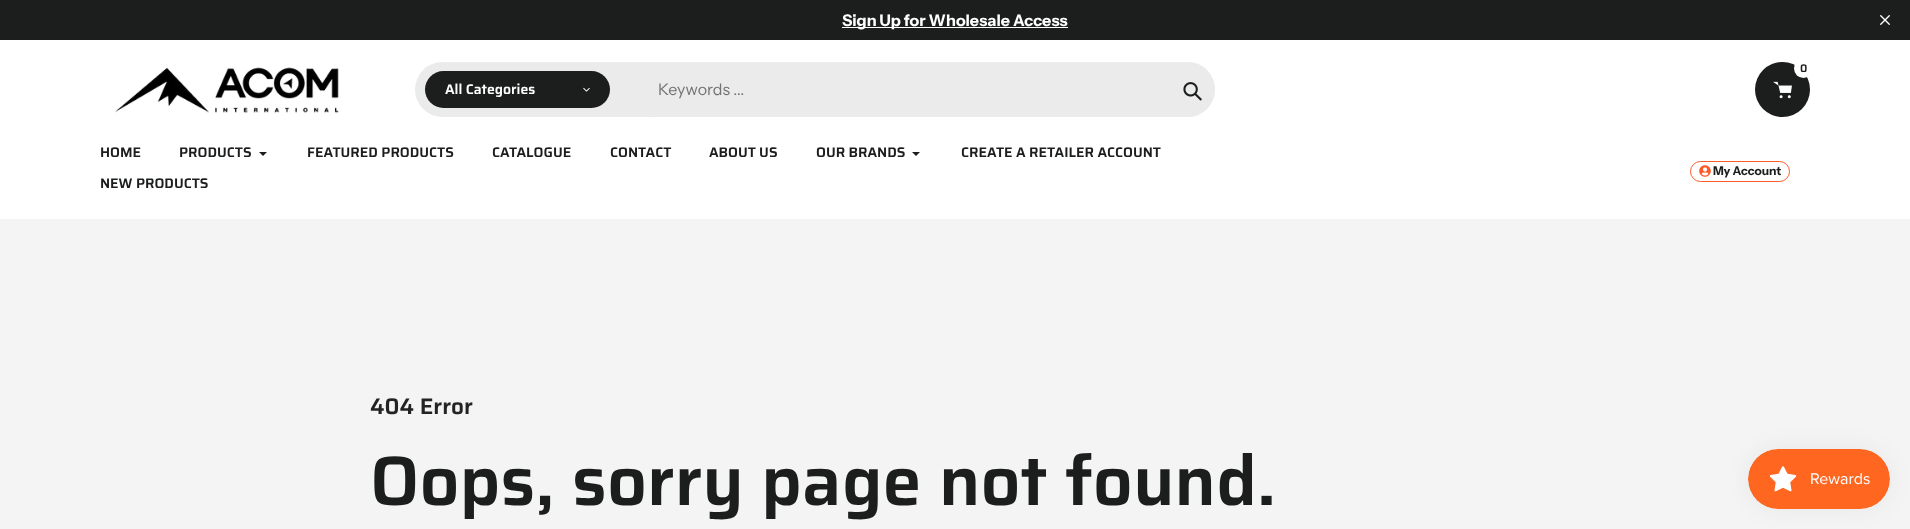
<svg xmlns="http://www.w3.org/2000/svg" width="1910" height="529" viewBox="0 0 1910 529">
  <rect width="100%" height="100%" fill="#f4f4f4"/>
  <path d="M0 0h1910v40H0z" fill="#1b1e1c"/>
  <path d="M842 27h226v1H842z" fill="#fff"/>
  <image x="1880" y="15" width="10" height="10" href="img/1.png"/>
  <path d="M0 40h1910v179H0z" fill="#fff"/>
  <image x="115" y="67" width="224" height="46" href="img/2.png"/>
  <circle cx="1782.5" cy="89.5" r="27.5" fill="#1b1e1c"/>
  <circle cx="1803.5" cy="68.5" r="9.5" fill="#fff"/>
  <image x="1773" y="81" width="19" height="18" href="img/3.png"/>
  <rect x="415" y="62" width="800" height="55" rx="27.5" fill="#ebebeb"/>
  <rect x="425" y="71" width="185" height="37" rx="18.5" fill="#1b1e1c"/>
  <image x="583" y="87" width="7" height="5" href="img/4.png"/>
  <rect x="630" y="62" width="585" height="55" rx="27.5" fill="#ebebeb"/>
  <image x="1183" y="82" width="19" height="19" href="img/5.png"/>
  <path d="M267 152L263 156L259 152" fill="#1b1e1c"/>
  <path d="M920 152L916 156L912 152" fill="#1b1e1c"/>
  <rect x="1690.5" y="161.5" width="99" height="20" rx="10" fill="none" stroke="#fd5b2a"/>
  <image x="1699" y="165" width="12" height="12" href="img/6.png"/>
  <rect x="1748" y="449" width="142" height="60" rx="30" fill="#0000000d" filter="blur(12.5px)"/>
  <image x="1748" y="449" width="142" height="60" href="img/7.png"/>
  <text x="842" y="26" font-family="Instrument Sans" font-size="16" font-weight="bold" fill="#fff">Sign Up for Wholesale Access</text>
  <text x="1800" y="72" font-family="Saira" font-size="11" font-weight="600" fill="#1b1e1c">0</text>
  <text x="445" y="94" font-family="Saira" font-size="14" font-weight="600" fill="#fff">All Categories</text>
  <text x="658" y="95" font-family="Instrument Sans" font-size="16" fill="#737373">Keywords ...</text>
  <g font-family="Saira" font-size="14" font-weight="600" fill="#1b1e1c">
    <text x="100" y="157">HOME</text>
    <text x="179" y="157">PRODUCTS</text>
    <text x="307" y="157">FEATURED PRODUCTS</text>
    <text x="492" y="157">CATALOGUE</text>
    <text x="610" y="157">CONTACT</text>
    <text x="709" y="157">ABOUT US</text>
    <text x="816" y="157">OUR BRANDS</text>
    <text x="961" y="157">CREATE A RETAILER ACCOUNT</text>
    <text x="100" y="188">NEW PRODUCTS</text>
  </g>
  <text x="1713" y="175" font-family="Instrument Sans" font-size="12" font-weight="bold" fill="#1b1e1c">My Account</text>
  <text x="370" y="414" font-family="Saira" font-size="22.5" font-weight="600" fill="#232323">404 Error</text>
  <text x="370" y="505" font-family="Saira" font-size="70" font-weight="600" fill="#1b1e1c">Oops, sorry page not found.</text>
</svg>
